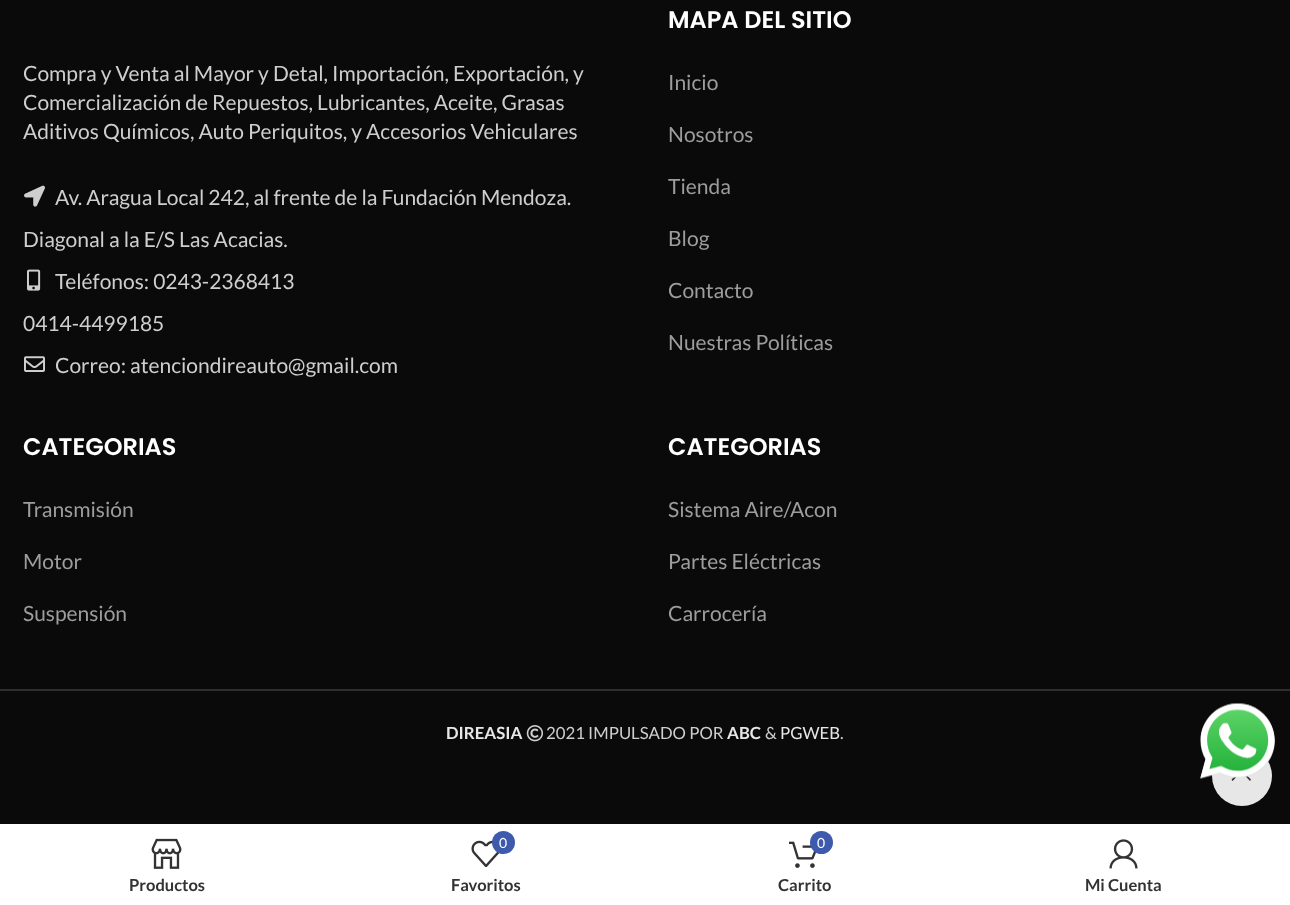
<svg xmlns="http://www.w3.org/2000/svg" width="1290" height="905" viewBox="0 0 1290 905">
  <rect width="100%" height="100%" fill="#fff"/>
  <path d="M0 0h1290v824H0z" fill="#0a0a0a"/>
  <image x="24" y="185" width="21" height="22" href="img/1.png"/>
  <image x="27" y="269" width="14" height="22" href="img/2.png"/>
  <image x="24" y="356" width="21" height="16" href="img/3.png"/>
  <path d="M0 689h1290v2H0z" fill="#2f2f2f"/>
  <image x="526" y="725" width="17" height="17" href="img/4.png"/>
  <circle cx="1242" cy="776" r="30" fill="#e7e7e7"/>
  <path d="M1250 781L1251 779.5L1241.5 770L1231.5 779.5L1232.5 781L1241.5 772Z" fill="#333"/>
  <image x="1200" y="703" width="75" height="76" href="img/5.png"/>
  <image x="151" y="838" width="31" height="31" href="img/6.png"/>
  <image x="471" y="840" width="29" height="27" href="img/7.png"/>
  <circle cx="503.5" cy="842.5" r="11.5" fill="#3e5aad"/>
  <image x="789" y="841" width="28" height="27" href="img/8.png"/>
  <circle cx="821.5" cy="842.5" r="11.5" fill="#3e5aad"/>
  <image x="1109" y="839" width="29" height="30" href="img/9.png"/>
  <g font-family="Lato" font-size="21" fill="#cecece">
    <text x="23" y="81">Compra y Venta al Mayor y Detal, Importación, Exportación, y</text>
    <text x="23" y="110">Comercialización de Repuestos, Lubricantes, Aceite, Grasas</text>
    <text x="23" y="139">Aditivos Químicos, Auto Periquitos, y Accesorios Vehiculares</text>
    <text x="55" y="205">Av. Aragua Local 242, al frente de la Fundación Mendoza.</text>
    <text x="23" y="247">Diagonal a la E/S Las Acacias.</text>
    <text x="55" y="289">Teléfonos: 0243-2368413</text>
    <text x="23" y="331">0414-4499185</text>
    <text x="55" y="373">Correo: atenciondireauto@gmail.com</text>
  </g>
  <text x="668" y="28" font-family="Poppins" font-size="24" font-weight="600" fill="#fff">MAPA DEL SITIO</text>
  <g font-family="Lato" font-size="21" fill="#9d9d9d">
    <text x="668" y="90">Inicio</text>
    <text x="668" y="142">Nosotros</text>
    <text x="668" y="194">Tienda</text>
    <text x="668" y="246">Blog</text>
    <text x="668" y="298">Contacto</text>
    <text x="668" y="350">Nuestras Políticas</text>
  </g>
  <text x="23" y="455" font-family="Poppins" font-size="24" font-weight="600" fill="#fff">CATEGORIAS</text>
  <g font-family="Lato" font-size="21" fill="#9d9d9d">
    <text x="23" y="517">Transmisión</text>
    <text x="23" y="569">Motor</text>
    <text x="23" y="621">Suspensión</text>
  </g>
  <text x="668" y="455" font-family="Poppins" font-size="24" font-weight="600" fill="#fff">CATEGORIAS</text>
  <g font-family="Lato" font-size="21" fill="#9d9d9d">
    <text x="668" y="517">Sistema Aire/Acon</text>
    <text x="668" y="569">Partes Eléctricas</text>
    <text x="668" y="621">Carrocería</text>
  </g>
  <text x="446" y="739" font-family="Lato" font-size="16.75" font-weight="bold" fill="#e7e7e7">DIREASIA</text>
  <text x="546" y="739" font-family="Lato" font-size="16.75" fill="#cecece">2021 IMPULSADO POR</text>
  <text x="727" y="739" font-family="Lato" font-size="16.75" font-weight="bold" fill="#e7e7e7">ABC</text>
  <text x="765" y="739" font-family="Lato" font-size="16.75" fill="#cecece">&amp;</text>
  <text x="780" y="739" font-family="Lato" font-size="16.75" fill="#e7e7e7">PGWEB</text>
  <text x="840" y="739" font-family="Lato" font-size="16.75" fill="#cecece">.</text>
  <text x="129" y="891" font-family="Lato" font-size="16.5" font-weight="bold" fill="#333">Productos</text>
  <text x="499" y="848" font-family="Lato" font-size="14" fill="#fff">0</text>
  <text x="451" y="891" font-family="Lato" font-size="16.5" font-weight="bold" fill="#333">Favoritos</text>
  <text x="817" y="848" font-family="Lato" font-size="14" fill="#fff">0</text>
  <g font-family="Lato" font-size="16.5" font-weight="bold" fill="#333">
    <text x="778" y="891">Carrito</text>
    <text x="1085" y="891">Mi Cuenta</text>
  </g>
</svg>
